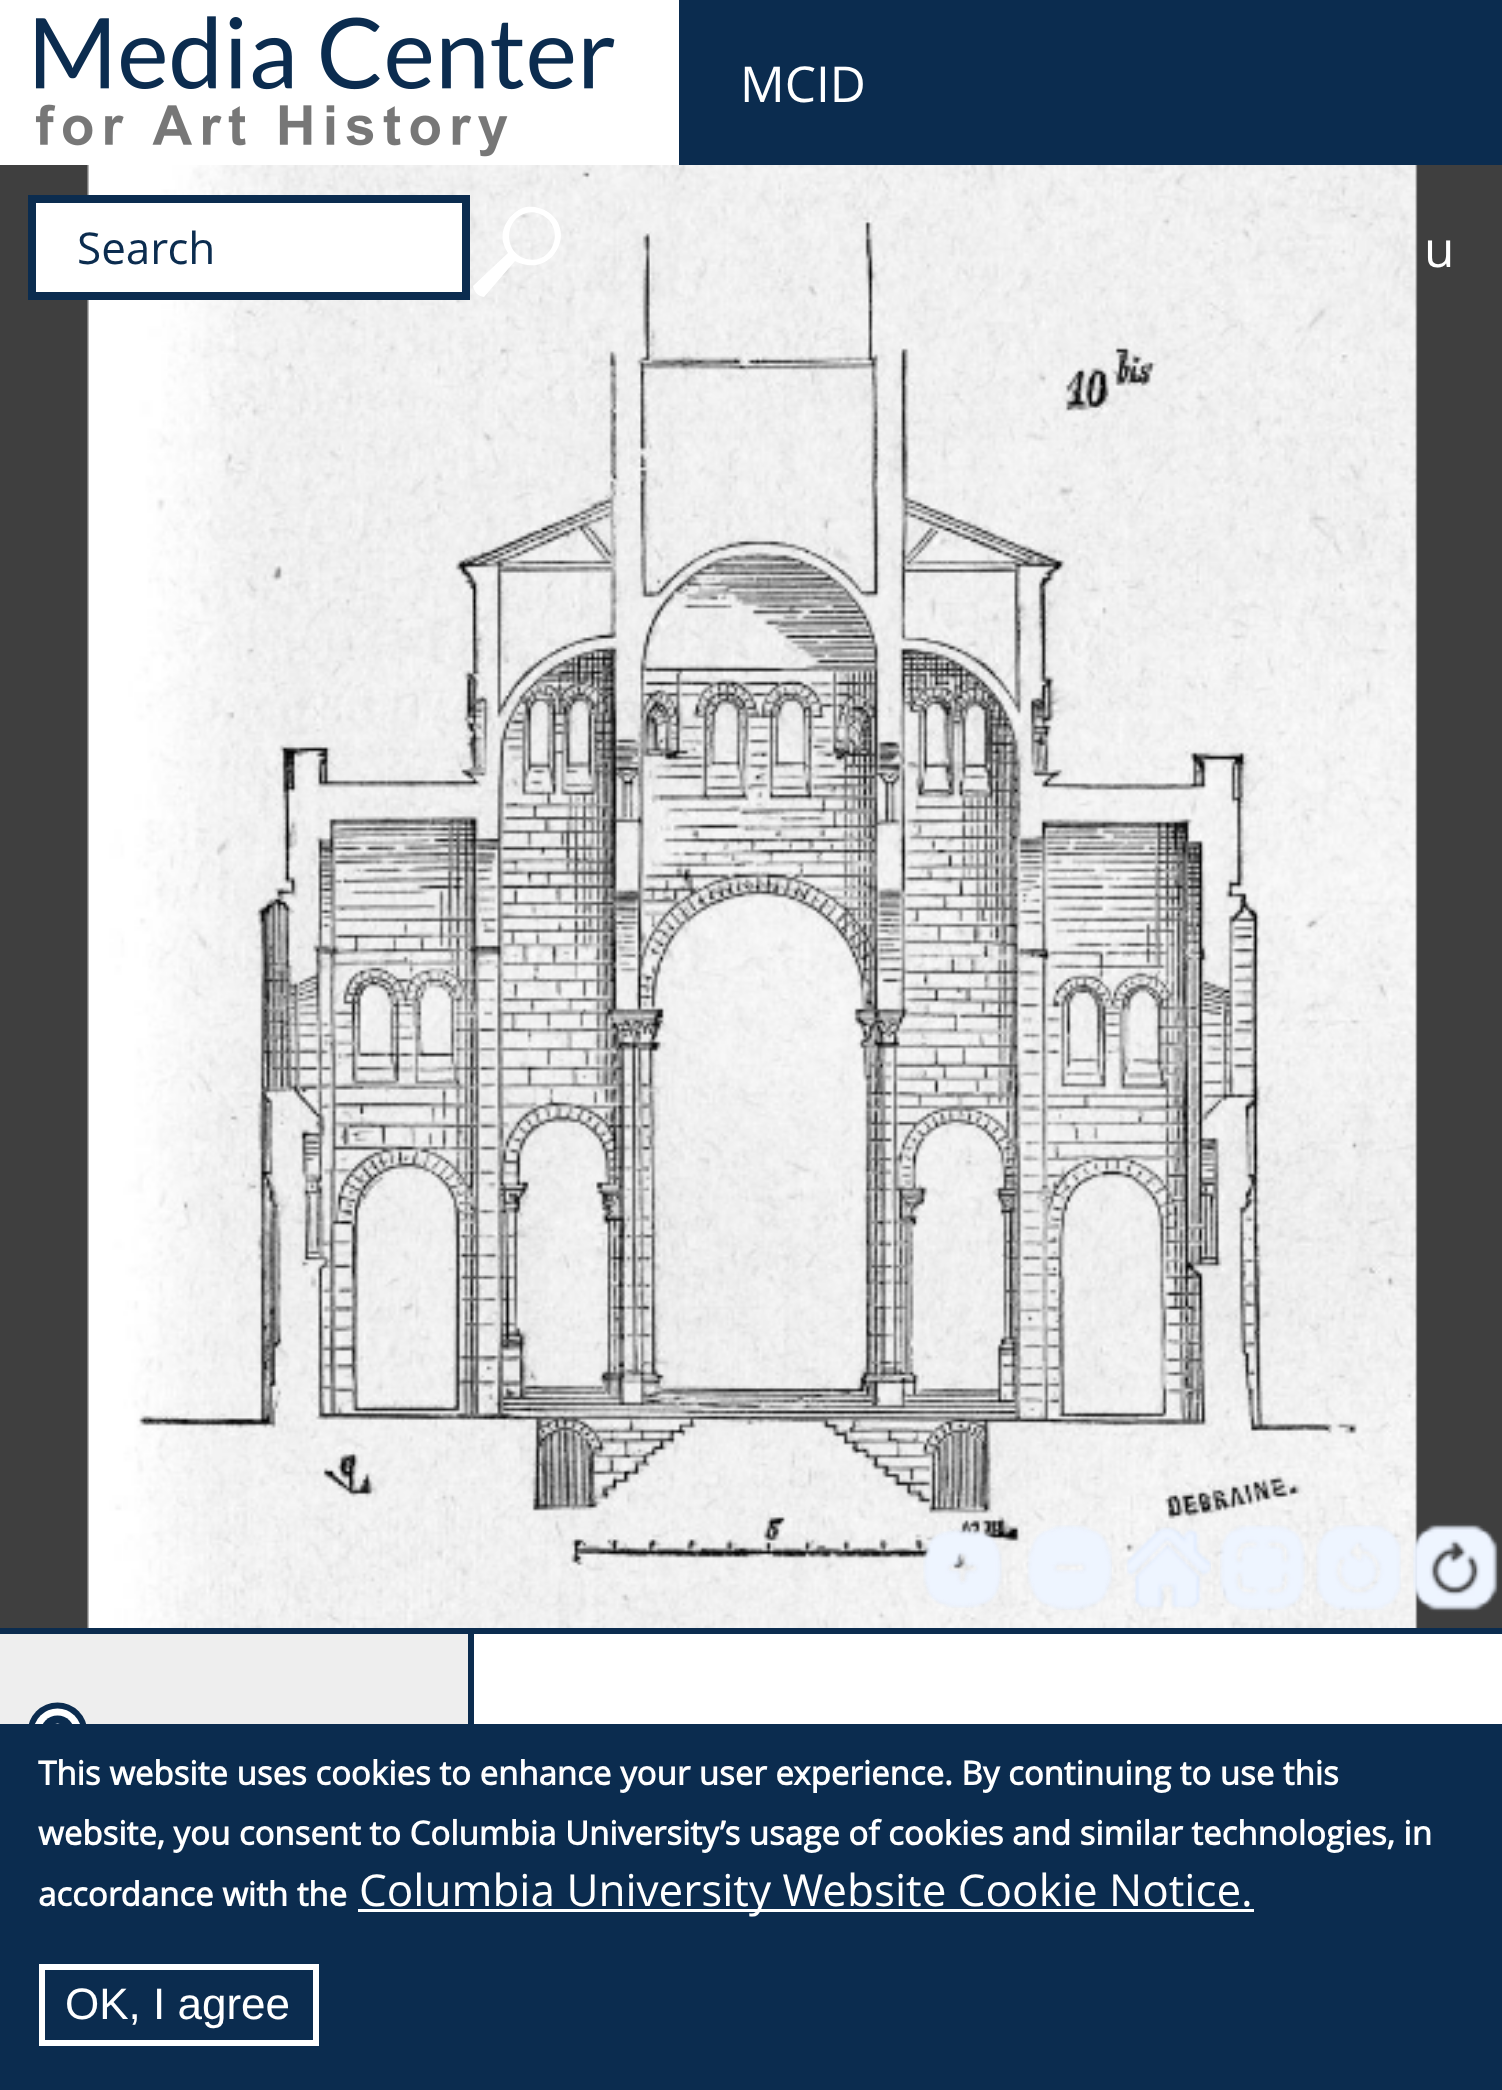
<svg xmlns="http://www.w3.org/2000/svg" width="1502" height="2090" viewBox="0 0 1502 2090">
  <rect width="100%" height="100%" fill="#fff"/>
  <path d="M679 0h823v165H679z" fill="#0b2c4f"/>
  <image x="35" y="16" width="580" height="141" href="img/1.png"/>
  <path d="M0 165h1502v1463H0z" fill="#3f3f3f"/>
  <image x="87" y="165" width="1331" height="1463" href="img/2.png"/>
  <path d="M32 199h434v97H32z" fill="#fff" stroke="#0b2c4f" stroke-width="8"/>
  <path d="M526 207C511 211 500 227 503 242C504 246 506 250 508 253L473 286C474 292 478 296 484 297L515 261C551 280 578 232 548 212C542 208 534 206 526 207ZM540 214C567 225 554 266 526 259C503 253 504 219 526 213C531 212 535 212 540 214Z" fill="#fff"/>
  <image x="923" y="1528" width="79" height="80" href="img/3.png"/>
  <image x="923" y="1528" width="77" height="79" href="img/4.png"/>
  <image x="1027" y="1525" width="85" height="85" href="img/5.png"/>
  <image x="1028" y="1526" width="83" height="83" href="img/6.png"/>
  <image x="1126" y="1527" width="85" height="82" href="img/7.png"/>
  <image x="1127" y="1528" width="83" height="79" href="img/8.png"/>
  <image x="1220" y="1525" width="85" height="85" href="img/9.png"/>
  <image x="1221" y="1526" width="83" height="83" href="img/10.png"/>
  <image x="1316" y="1525" width="85" height="85" href="img/11.png"/>
  <image x="1317" y="1526" width="83" height="83" href="img/12.png"/>
  <image x="1413" y="1523" width="86" height="89" href="img/13.png"/>
  <image x="1413" y="1525" width="85" height="86" href="img/14.png"/>
  <path d="M0 1628h1502v6H0z" fill="#0b2c4f"/>
  <path d="M0 1634h468v90H0z" fill="#eee"/>
  <path d="M468 1634h6v90H468z" fill="#0b2c4f"/>
  <circle cx="57.5" cy="1732.5" r="30" fill="#0b2c4f"/>
  <circle cx="57.5" cy="1732.5" r="24" fill="#fff"/>
  <circle cx="57.5" cy="1732.5" r="17" fill="#0b2c4f"/>
  <circle cx="57.5" cy="1732.5" r="9" fill="#fff"/>
  <path d="M0 1724h1502v366H0z" fill="#0b2c4f"/>
  <path d="M358 1909h896v3H358z" fill="#fff"/>
  <path d="M42 1967h274v76H42z" fill="none" stroke="#fff" stroke-width="6"/>
  <text x="740" y="102" font-family="Open Sans" font-size="49.5" fill="#fff">MCID</text>
  <text x="77" y="264" font-family="Open Sans" font-size="44" fill="#0b2c4f">Search</text>
  <text x="1424" y="267" font-family="Open Sans" font-size="49.5" fill="#fff">u</text>
  <g font-family="Open Sans" font-size="33" font-weight="bold" fill="#fff">
    <text x="38" y="1785">This website uses cookies to enhance your user experience. By continuing to use this</text>
    <text x="38" y="1845">website, you consent to Columbia University’s usage of cookies and similar technologies, in</text>
    <text x="38" y="1906">accordance with the</text>
  </g>
  <text x="359" y="1906" font-family="Open Sans" font-size="44" fill="#fff">Columbia University Website Cookie Notice.</text>
  <text x="65" y="2019" font-family="Liberation Sans" font-size="44" fill="#fff">OK, I agree</text>
</svg>
